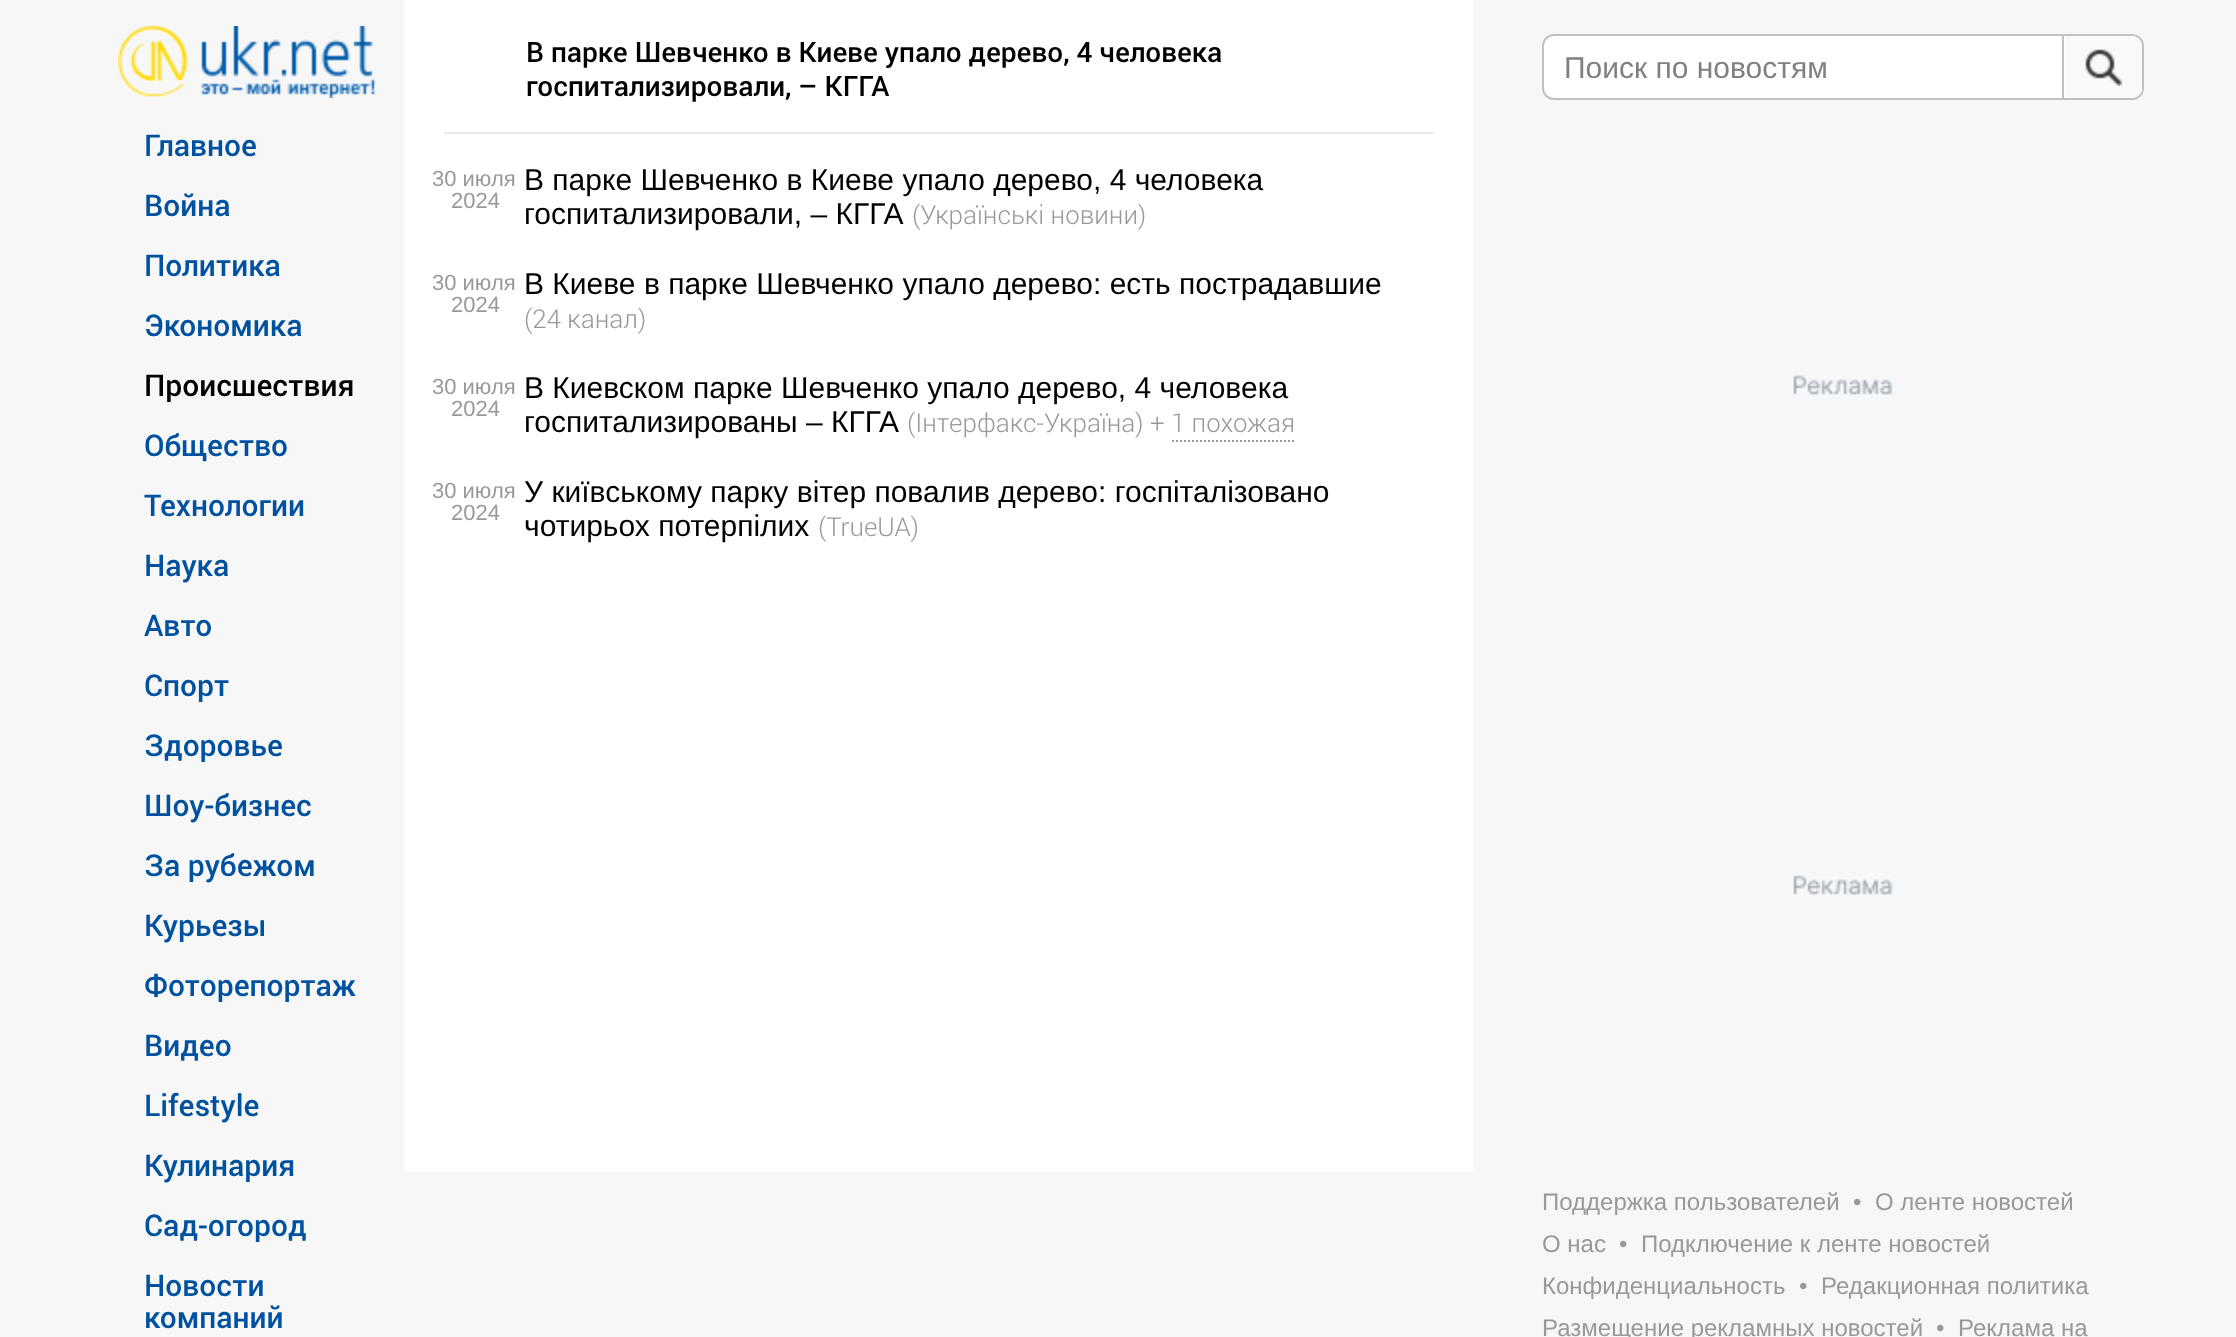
<svg xmlns="http://www.w3.org/2000/svg" width="2236" height="1337" viewBox="0 0 2236 1337">
  <rect width="100%" height="100%" fill="#f7f7f7"/>
  <image x="118" y="26" width="258" height="72" href="img/1.png"/>
  <path d="M404 0h1070v1172H404z" fill="#fff"/>
  <path d="M444 132h990v2H444z" fill="#e9e9e9"/>
  <path d="M1172 441H1296" fill="none" stroke="#999" stroke-width="2" stroke-dasharray="2 2"/>
  <rect x="1543" y="35" width="600" height="64" rx="11" fill="#fff" stroke="#c1c1c1" stroke-width="2"/>
  <path d="M2062 36h2v62H2062z" fill="#c1c1c1"/>
  <path d="M2066 36H2132C2137.5 36 2142 40.5 2142 46V88C2142 93.5 2137.5 98 2132 98H2066Z" fill="#f9f9f9"/>
  <image x="2085" y="49" width="37" height="37" href="img/2.png"/>
  <image x="1793" y="375" width="100" height="21" href="img/3.png"/>
  <image x="1793" y="875" width="100" height="21" href="img/3.png"/>
  <g font-family="Roboto" font-size="30" font-weight="500" fill="#00519f">
    <text x="144" y="156">Главное</text>
    <text x="144" y="216">Война</text>
    <text x="144" y="276">Политика</text>
    <text x="144" y="336">Экономика</text>
  </g>
  <text x="144" y="396" font-family="Roboto" font-size="30" font-weight="500" fill="#000">Происшествия</text>
  <g font-family="Roboto" font-size="30" font-weight="500" fill="#00519f">
    <text x="144" y="456">Общество</text>
    <text x="144" y="516">Технологии</text>
    <text x="144" y="576">Наука</text>
    <text x="144" y="636">Авто</text>
    <text x="144" y="696">Спорт</text>
    <text x="144" y="756">Здоровье</text>
    <text x="144" y="816">Шоу-бизнес</text>
    <text x="144" y="876">За рубежом</text>
    <text x="144" y="936">Курьезы</text>
    <text x="144" y="996">Фоторепортаж</text>
    <text x="144" y="1056">Видео</text>
    <text x="144" y="1116">Lifestyle</text>
    <text x="144" y="1176">Кулинария</text>
    <text x="144" y="1236">Сад-огород</text>
    <text x="144" y="1296">Новости</text>
    <text x="144" y="1328">компаний</text>
  </g>
  <g font-family="Roboto" font-size="28" font-weight="500" fill="#000">
    <text x="526" y="62">В парке Шевченко в Киеве упало дерево, 4 человека</text>
    <text x="526" y="96">госпитализировали, – КГГА</text>
  </g>
  <g font-family="Liberation Sans" font-size="22" fill="#999">
    <text x="432" y="186">30 июля</text>
    <text x="451" y="208">2024</text>
  </g>
  <g font-family="Liberation Sans" font-size="30" fill="#000">
    <text x="524" y="190">В парке Шевченко в Киеве упало дерево, 4 человека</text>
    <text x="524" y="224">госпитализировали, – КГГА</text>
  </g>
  <text x="912" y="224" font-family="Roboto" font-size="26" font-weight="300" fill="#999">(Українські новини)</text>
  <g font-family="Liberation Sans" font-size="22" fill="#999">
    <text x="432" y="290">30 июля</text>
    <text x="451" y="312">2024</text>
  </g>
  <text x="524" y="294" font-family="Liberation Sans" font-size="30" fill="#000">В Киеве в парке Шевченко упало дерево: есть пострадавшие</text>
  <text x="524" y="328" font-family="Roboto" font-size="26" font-weight="300" fill="#999">(24 канал)</text>
  <g font-family="Liberation Sans" font-size="22" fill="#999">
    <text x="432" y="394">30 июля</text>
    <text x="451" y="416">2024</text>
  </g>
  <g font-family="Liberation Sans" font-size="30" fill="#000">
    <text x="524" y="398">В Киевском парке Шевченко упало дерево, 4 человека</text>
    <text x="524" y="432">госпитализированы – КГГА</text>
  </g>
  <text x="907" y="432" font-family="Roboto" font-size="26" font-weight="300" fill="#999">(Інтерфакс-Україна) + 1 похожая</text>
  <g font-family="Liberation Sans" font-size="22" fill="#999">
    <text x="432" y="498">30 июля</text>
    <text x="451" y="520">2024</text>
  </g>
  <g font-family="Liberation Sans" font-size="30" fill="#000">
    <text x="524" y="502">У київському парку вітер повалив дерево: госпіталізовано</text>
    <text x="524" y="536">чотирьох потерпілих</text>
  </g>
  <text x="818" y="536" font-family="Roboto" font-size="26" font-weight="300" fill="#999">(TrueUA)</text>
  <text x="1564" y="78" font-family="Liberation Sans" font-size="30" fill="#808080">Поиск по новостям</text>
  <g font-family="Liberation Sans" font-size="24" fill="#999">
    <text x="1542" y="1210">Поддержка пользователей</text>
    <text x="1853" y="1210">•</text>
    <text x="1875" y="1210">О ленте новостей</text>
    <text x="1542" y="1252">О нас</text>
    <text x="1619" y="1252">•</text>
    <text x="1641" y="1252">Подключение к ленте новостей</text>
    <text x="1542" y="1294">Конфиденциальность</text>
    <text x="1799" y="1294">•</text>
    <text x="1821" y="1294">Редакционная политика</text>
    <text x="1542" y="1336">Размещение рекламных новостей</text>
    <text x="1936" y="1336">•</text>
    <text x="1958" y="1336">Реклама на</text>
  </g>
</svg>
